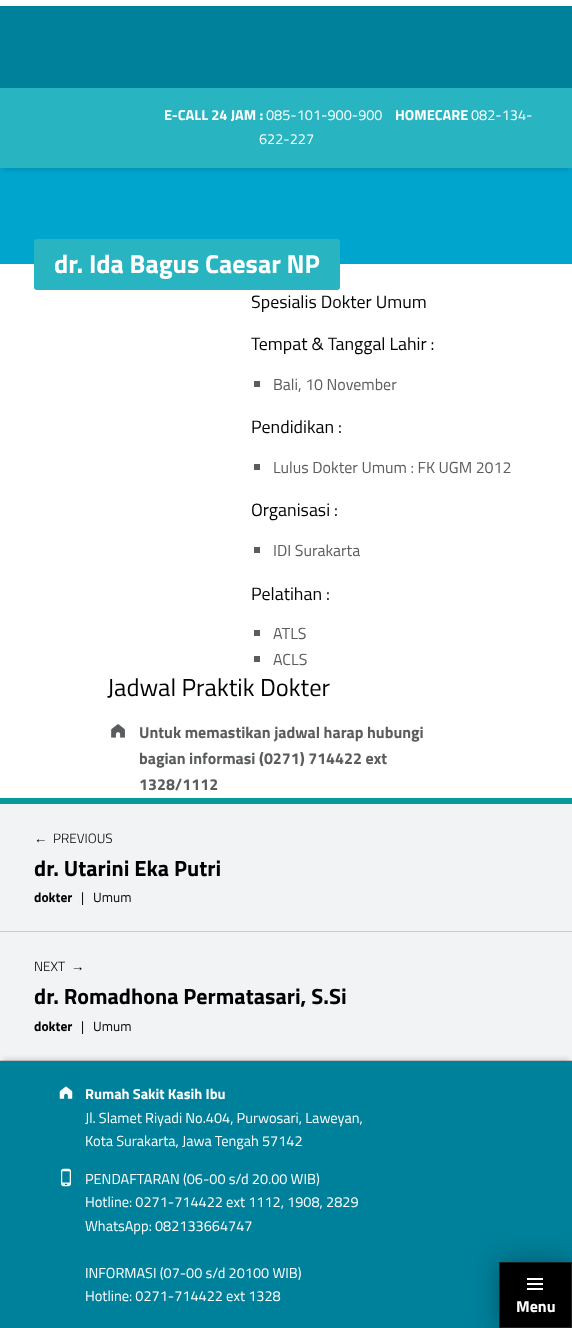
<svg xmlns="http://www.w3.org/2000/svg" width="572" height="1328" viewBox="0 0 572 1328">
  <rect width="100%" height="100%" fill="#fff"/>
  <path d="M0 168h572v96H0z" fill="#00a5ce"/>
  <path d="M3 9h566v162H3z" fill="#0000001a" filter="blur(2px)"/>
  <path d="M0 6h572v82H0z" fill="#00819b"/>
  <path d="M0 88h572v80H0z" fill="#28b5c1"/>
  <path d="M0 804h572v256H0z" fill="#f1f3f5"/>
  <path d="M0 1060h572v1H0z" fill="#caccce"/>
  <path d="M3 1058h566v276H3z" fill="#0000001a" filter="blur(2px)"/>
  <path d="M0 1061h572v267H0z" fill="#00819b"/>
  <path d="M499 1262h73v66H499z" fill="#00000054" filter="blur(13px)"/>
  <path d="M499.5 1262.5h72v65H499.5z" fill="#000" stroke="#1e1e1e"/>
  <image x="527" y="1278" width="16" height="12" href="img/1.png"/>
  <rect x="34" y="239" width="306" height="51" rx="3" fill="#28b5c1"/>
  <path d="M254 381h6v6H254z" fill="#5a5c5e"/>
  <path d="M254 464h6v6H254z" fill="#5a5c5e"/>
  <path d="M254 547h6v6H254z" fill="#5a5c5e"/>
  <path d="M254 630h6v6H254z" fill="#5a5c5e"/>
  <path d="M254 656h6v6H254z" fill="#5a5c5e"/>
  <image x="111" y="724" width="14" height="14" href="img/2.png"/>
  <path d="M0 798h572v6H0z" fill="#07999b"/>
  <path d="M0 931h572v1H0z" fill="#caccce"/>
  <image x="59" y="1086" width="14" height="13" href="img/3.png"/>
  <image x="61" y="1168" width="10" height="19" href="img/4.png"/>
  <text x="164" y="120" font-family="Titillium Web" font-size="14.5" font-weight="bold" fill="#fff">E-CALL 24 JAM :</text>
  <text x="266" y="120" font-family="Titillium Web" font-size="14.5" fill="#fff">085-101-900-900</text>
  <text x="395" y="120" font-family="Titillium Web" font-size="14.5" font-weight="bold" fill="#fff">HOMECARE</text>
  <g font-family="Titillium Web" font-size="14.5" fill="#fff">
    <text x="471" y="120">082-134-</text>
    <text x="259" y="144">622-227</text>
  </g>
  <text x="516" y="1312" font-family="Titillium Web" font-size="16" font-weight="bold" fill="#fff">Menu</text>
  <text x="54" y="273" font-family="Titillium Web" font-size="26" font-weight="bold" fill="#fff">dr. Ida Bagus Caesar NP</text>
  <g font-family="Titillium Web" font-size="17.9" fill="#000">
    <text x="251" y="308">Spesialis Dokter Umum</text>
    <text x="251" y="350">Tempat &amp; Tanggal Lahir :</text>
  </g>
  <text x="273" y="390" font-family="Titillium Web" font-size="16" fill="#5a5c5e">Bali, 10 November</text>
  <text x="251" y="433" font-family="Titillium Web" font-size="17.9" fill="#000">Pendidikan :</text>
  <text x="273" y="473" font-family="Titillium Web" font-size="16" fill="#5a5c5e">Lulus Dokter Umum : FK UGM 2012</text>
  <text x="251" y="516" font-family="Titillium Web" font-size="17.9" fill="#000">Organisasi :</text>
  <text x="273" y="556" font-family="Titillium Web" font-size="16" fill="#5a5c5e">IDI Surakarta</text>
  <text x="251" y="600" font-family="Titillium Web" font-size="17.9" fill="#000">Pelatihan :</text>
  <g font-family="Titillium Web" font-size="16" fill="#5a5c5e">
    <text x="273" y="639">ATLS</text>
    <text x="273" y="665">ACLS</text>
  </g>
  <text x="107" y="696" font-family="Titillium Web" font-size="24.6" fill="#000">Jadwal Praktik Dokter</text>
  <g font-family="Titillium Web" font-size="16" font-weight="bold" fill="#5a5c5e">
    <text x="139" y="738">Untuk memastikan jadwal harap hubungi</text>
    <text x="139" y="764">bagian informasi (0271) 714422 ext</text>
    <text x="139" y="790">1328/1112</text>
  </g>
  <text x="34" y="843" font-family="Liberation Sans" font-size="13.5" fill="#000">←</text>
  <text x="53" y="843" font-family="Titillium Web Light" font-size="13.5" font-weight="300" fill="#000">PREVIOUS</text>
  <text x="34" y="876" font-family="Titillium Web" font-size="22.1" font-weight="bold" fill="#000">dr. Utarini Eka Putri</text>
  <text x="34" y="902" font-family="Titillium Web" font-size="13.5" font-weight="bold" fill="#000">dokter</text>
  <g font-family="Titillium Web" font-size="13.5" fill="#000">
    <text x="81" y="902">|</text>
    <text x="93" y="902">Umum</text>
  </g>
  <text x="34" y="971" font-family="Titillium Web Light" font-size="13.5" font-weight="300" fill="#000">NEXT</text>
  <text x="71" y="971" font-family="Liberation Sans" font-size="13.5" fill="#000">→</text>
  <text x="34" y="1004" font-family="Titillium Web" font-size="22.1" font-weight="bold" fill="#000">dr. Romadhona Permatasari, S.Si</text>
  <text x="34" y="1031" font-family="Titillium Web" font-size="13.5" font-weight="bold" fill="#000">dokter</text>
  <g font-family="Titillium Web" font-size="13.5" fill="#000">
    <text x="81" y="1031">|</text>
    <text x="93" y="1031">Umum</text>
  </g>
  <text x="85" y="1099" font-family="Titillium Web" font-size="14.5" font-weight="bold" fill="#fff">Rumah Sakit Kasih Ibu</text>
  <g font-family="Titillium Web" font-size="14.5" fill="#fff">
    <text x="85" y="1123">Jl. Slamet Riyadi No.404, Purwosari, Laweyan,</text>
    <text x="85" y="1146">Kota Surakarta, Jawa Tengah 57142</text>
    <text x="85" y="1184">PENDAFTARAN (06-00 s/d 20.00 WIB)</text>
    <text x="85" y="1207">Hotline: 0271-714422 ext 1112, 1908, 2829</text>
    <text x="85" y="1231">WhatsApp: 082133664747</text>
    <text x="85" y="1278">INFORMASI (07-00 s/d 20100 WIB)</text>
    <text x="85" y="1301">Hotline: 0271-714422 ext 1328</text>
  </g>
</svg>
